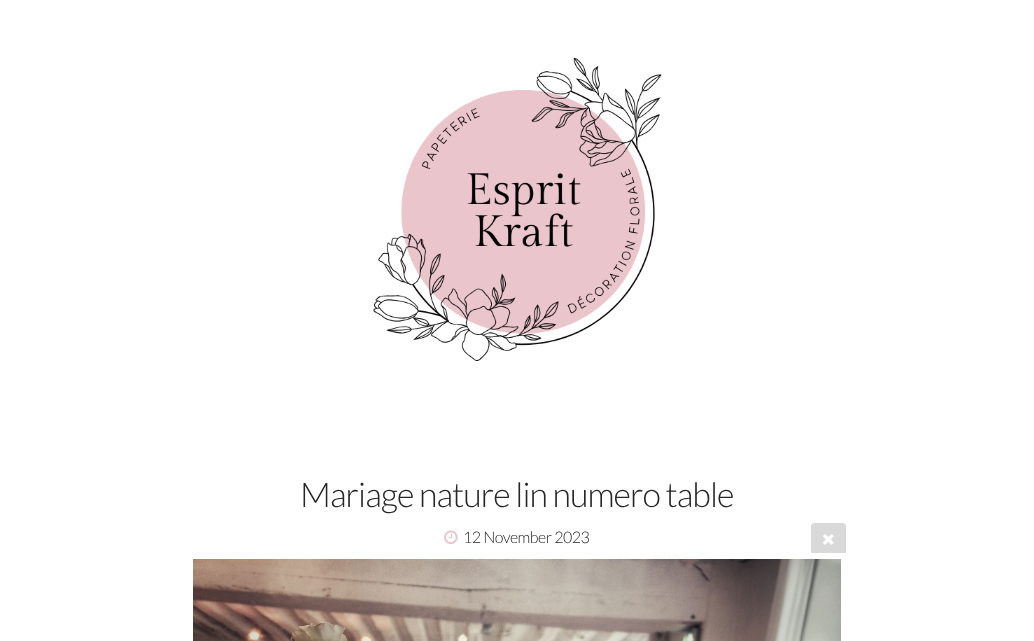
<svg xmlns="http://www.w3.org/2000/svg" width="1034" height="641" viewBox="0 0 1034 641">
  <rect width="100%" height="100%" fill="#fff"/>
  <image x="373" y="57" width="289" height="304" href="img/1.png"/>
  <image x="444" y="530" width="14" height="15" href="img/2.png"/>
  <path d="M814 523H843C844.5 523 846 524.5 846 526V553H811V526C811 524.5 812.5 523 814 523Z" fill="#d9d9d9"/>
  <image x="823" y="534" width="11" height="11" href="img/3.png"/>
  <image x="193" y="559" width="648" height="82" href="img/4.png"/>
  <text x="300" y="507" font-family="Lato" font-size="34" font-weight="300" letter-spacing="-0.95" fill="#262626">Mariage nature lin numero table</text>
  <text x="463" y="543" font-family="Lato" font-size="16" font-weight="300" letter-spacing="-0.5" fill="#262626">12 November 2023</text>
</svg>
